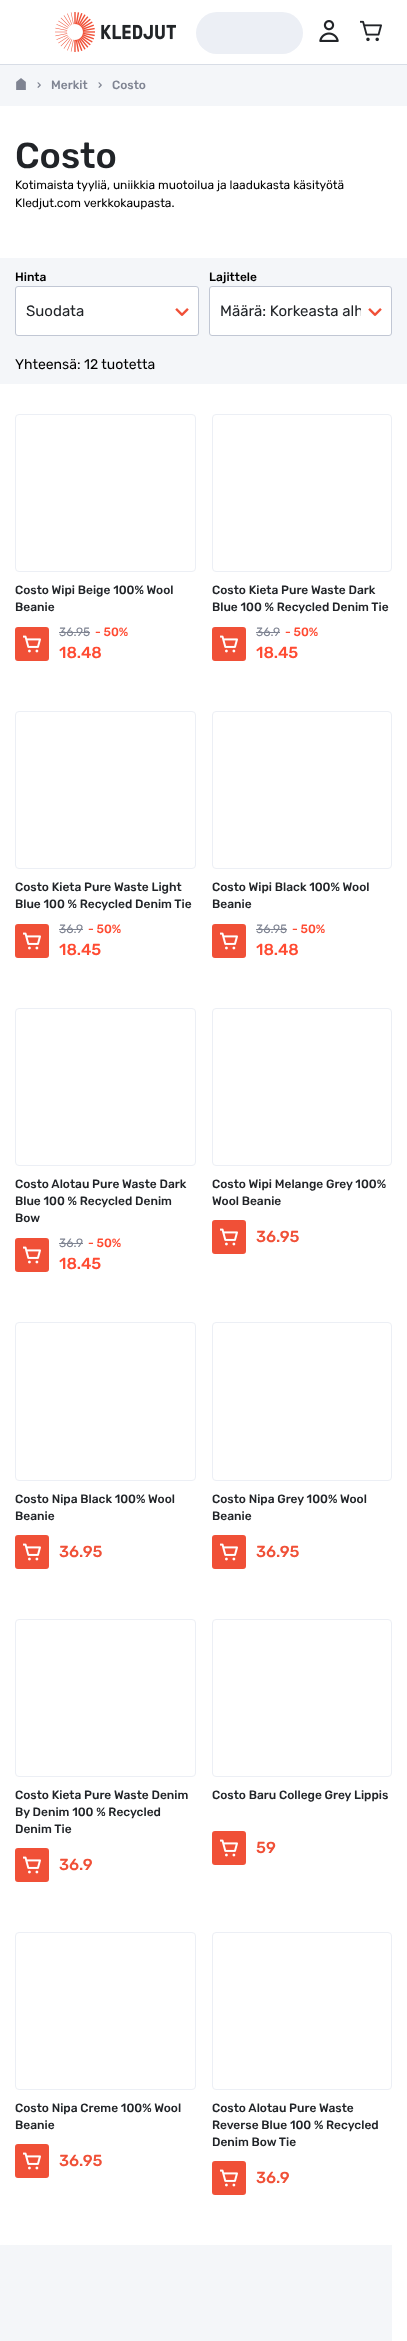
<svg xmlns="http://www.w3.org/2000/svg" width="407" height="2341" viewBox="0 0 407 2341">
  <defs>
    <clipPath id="clip1"><path d="M220 304h141v15H220z"/></clipPath>
  </defs>
  <rect width="100%" height="100%" fill="#fff"/>
  <path d="M0 64h407v1H0z" fill="#d8dde6"/>
  <image x="55" y="12" width="121" height="40" href="img/1.png"/>
  <rect x="196" y="12" width="107" height="42" rx="21" fill="#eceff5"/>
  <image x="319" y="20" width="20" height="22" href="img/2.png"/>
  <image x="360" y="20" width="22" height="22" href="img/3.png"/>
  <path d="M0 65h407v41H0z" fill="#f4f6f9"/>
  <image x="16" y="78" width="10" height="12" href="img/4.png"/>
  <path d="M0 258h407v126H0z" fill="#f4f6f9"/>
  <rect x="15.5" y="286.5" width="183" height="49" rx="2.5" fill="#fff" stroke="#c1c7d4"/>
  <image x="175" y="308" width="14" height="8" href="img/5.png"/>
  <rect x="209.5" y="286.5" width="182" height="49" rx="2.5" fill="#fff" stroke="#c1c7d4"/>
  <image x="368" y="308" width="14" height="8" href="img/5.png"/>
  <rect x="15.5" y="414.5" width="180" height="157" rx="3.5" fill="none" stroke="#eceff5"/>
  <rect x="16" y="628" width="32" height="32" rx="2" fill="#f05037" stroke="#f05037" stroke-width="2"/>
  <image x="23" y="635" width="18" height="18" href="img/6.png"/>
  <path d="M59 632h31v1H59z" fill="#7f8492"/>
  <rect x="212.5" y="414.5" width="179" height="157" rx="3.5" fill="none" stroke="#eceff5"/>
  <rect x="213" y="628" width="32" height="32" rx="2" fill="#f05037" stroke="#f05037" stroke-width="2"/>
  <image x="220" y="635" width="18" height="18" href="img/6.png"/>
  <path d="M256 632h24v1H256z" fill="#7f8492"/>
  <rect x="15.5" y="711.5" width="180" height="157" rx="3.5" fill="none" stroke="#eceff5"/>
  <rect x="16" y="925" width="32" height="32" rx="2" fill="#f05037" stroke="#f05037" stroke-width="2"/>
  <image x="23" y="932" width="18" height="18" href="img/6.png"/>
  <path d="M59 929h24v1H59z" fill="#7f8492"/>
  <rect x="212.5" y="711.5" width="179" height="157" rx="3.5" fill="none" stroke="#eceff5"/>
  <rect x="213" y="925" width="32" height="32" rx="2" fill="#f05037" stroke="#f05037" stroke-width="2"/>
  <image x="220" y="932" width="18" height="18" href="img/6.png"/>
  <path d="M256 929h31v1H256z" fill="#7f8492"/>
  <rect x="15.5" y="1008.5" width="180" height="157" rx="3.5" fill="none" stroke="#eceff5"/>
  <rect x="16" y="1239" width="32" height="32" rx="2" fill="#f05037" stroke="#f05037" stroke-width="2"/>
  <image x="23" y="1246" width="18" height="18" href="img/6.png"/>
  <path d="M59 1243h24v1H59z" fill="#7f8492"/>
  <rect x="212.5" y="1008.5" width="179" height="157" rx="3.5" fill="none" stroke="#eceff5"/>
  <rect x="213" y="1221" width="32" height="32" rx="2" fill="#f05037" stroke="#f05037" stroke-width="2"/>
  <image x="220" y="1228" width="18" height="18" href="img/6.png"/>
  <rect x="15.5" y="1322.5" width="180" height="158" rx="3.5" fill="none" stroke="#eceff5"/>
  <rect x="16" y="1536" width="32" height="32" rx="2" fill="#f05037" stroke="#f05037" stroke-width="2"/>
  <image x="23" y="1543" width="18" height="18" href="img/6.png"/>
  <rect x="212.5" y="1322.5" width="179" height="158" rx="3.5" fill="none" stroke="#eceff5"/>
  <rect x="213" y="1536" width="32" height="32" rx="2" fill="#f05037" stroke="#f05037" stroke-width="2"/>
  <image x="220" y="1543" width="18" height="18" href="img/6.png"/>
  <rect x="15.5" y="1619.5" width="180" height="157" rx="3.5" fill="none" stroke="#eceff5"/>
  <rect x="16" y="1849" width="32" height="32" rx="2" fill="#f05037" stroke="#f05037" stroke-width="2"/>
  <image x="23" y="1856" width="18" height="18" href="img/6.png"/>
  <rect x="212.5" y="1619.5" width="179" height="157" rx="3.5" fill="none" stroke="#eceff5"/>
  <rect x="213" y="1832" width="32" height="32" rx="2" fill="#f05037" stroke="#f05037" stroke-width="2"/>
  <image x="220" y="1839" width="18" height="18" href="img/6.png"/>
  <rect x="15.5" y="1932.5" width="180" height="157" rx="3.5" fill="none" stroke="#eceff5"/>
  <rect x="16" y="2145" width="32" height="32" rx="2" fill="#f05037" stroke="#f05037" stroke-width="2"/>
  <image x="23" y="2152" width="18" height="18" href="img/6.png"/>
  <rect x="212.5" y="1932.5" width="179" height="157" rx="3.5" fill="none" stroke="#eceff5"/>
  <rect x="213" y="2162" width="32" height="32" rx="2" fill="#f05037" stroke="#f05037" stroke-width="2"/>
  <image x="220" y="2169" width="18" height="18" href="img/6.png"/>
  <path d="M0 2245h392v96H0z" fill="#f4f6f9"/>
  <g font-family="Rubik" font-size="12" font-weight="500" fill="#7f8492">
    <text x="37" y="89">›</text>
    <text x="51" y="89">Merkit</text>
    <text x="98" y="89">›</text>
    <text x="112" y="89">Costo</text>
  </g>
  <text x="15" y="168" font-family="Rubik" font-size="36" font-weight="500" fill="#212428">Costo</text>
  <g font-family="Rubik" font-size="12" fill="#000">
    <text x="15" y="189">Kotimaista tyyliä, uniikkia muotoilua ja laadukasta käsityötä</text>
    <text x="15" y="207">Kledjut.com verkkokaupasta.</text>
  </g>
  <text x="15" y="281" font-family="Rubik" font-size="12" font-weight="500" fill="#000">Hinta</text>
  <text x="26" y="316" font-family="Rubik" font-size="15" fill="#212428">Suodata</text>
  <text x="209" y="281" font-family="Rubik" font-size="12" font-weight="500" fill="#000">Lajittele</text>
  <g clip-path="url(#clip1)">
    <text x="220" y="316" font-family="Rubik" font-size="15" fill="#212428">Määrä: Korkeasta alh</text>
  </g>
  <text x="15" y="369" font-family="Rubik" font-size="14" fill="#000">Yhteensä: 12 tuotetta</text>
  <g font-family="Rubik" font-size="12" font-weight="500" fill="#212428">
    <text x="15" y="594">Costo Wipi Beige 100% Wool</text>
    <text x="15" y="611">Beanie</text>
  </g>
  <text x="59" y="636" font-family="Rubik" font-size="12" fill="#7f8492">36.95</text>
  <text x="95" y="636" font-family="Rubik" font-size="12" font-weight="500" fill="#ff4b32">- 50%</text>
  <text x="59" y="658" font-family="Rubik" font-size="16" font-weight="500" fill="#ff4b32">18.48</text>
  <g font-family="Rubik" font-size="12" font-weight="500" fill="#212428">
    <text x="212" y="594">Costo Kieta Pure Waste Dark</text>
    <text x="212" y="611">Blue 100 % Recycled Denim Tie</text>
  </g>
  <text x="256" y="636" font-family="Rubik" font-size="12" fill="#7f8492">36.9</text>
  <text x="285" y="636" font-family="Rubik" font-size="12" font-weight="500" fill="#ff4b32">- 50%</text>
  <text x="256" y="658" font-family="Rubik" font-size="16" font-weight="500" fill="#ff4b32">18.45</text>
  <g font-family="Rubik" font-size="12" font-weight="500" fill="#212428">
    <text x="15" y="891">Costo Kieta Pure Waste Light</text>
    <text x="15" y="908">Blue 100 % Recycled Denim Tie</text>
  </g>
  <text x="59" y="933" font-family="Rubik" font-size="12" fill="#7f8492">36.9</text>
  <text x="88" y="933" font-family="Rubik" font-size="12" font-weight="500" fill="#ff4b32">- 50%</text>
  <text x="59" y="955" font-family="Rubik" font-size="16" font-weight="500" fill="#ff4b32">18.45</text>
  <g font-family="Rubik" font-size="12" font-weight="500" fill="#212428">
    <text x="212" y="891">Costo Wipi Black 100% Wool</text>
    <text x="212" y="908">Beanie</text>
  </g>
  <text x="256" y="933" font-family="Rubik" font-size="12" fill="#7f8492">36.95</text>
  <text x="292" y="933" font-family="Rubik" font-size="12" font-weight="500" fill="#ff4b32">- 50%</text>
  <text x="256" y="955" font-family="Rubik" font-size="16" font-weight="500" fill="#ff4b32">18.48</text>
  <g font-family="Rubik" font-size="12" font-weight="500" fill="#212428">
    <text x="15" y="1188">Costo Alotau Pure Waste Dark</text>
    <text x="15" y="1205">Blue 100 % Recycled Denim</text>
    <text x="15" y="1222">Bow</text>
  </g>
  <text x="59" y="1247" font-family="Rubik" font-size="12" fill="#7f8492">36.9</text>
  <text x="88" y="1247" font-family="Rubik" font-size="12" font-weight="500" fill="#ff4b32">- 50%</text>
  <text x="59" y="1269" font-family="Rubik" font-size="16" font-weight="500" fill="#ff4b32">18.45</text>
  <g font-family="Rubik" font-size="12" font-weight="500" fill="#212428">
    <text x="212" y="1188">Costo Wipi Melange Grey 100%</text>
    <text x="212" y="1205">Wool Beanie</text>
  </g>
  <text x="256" y="1242" font-family="Rubik" font-size="16" font-weight="500" fill="#f05037">36.95</text>
  <g font-family="Rubik" font-size="12" font-weight="500" fill="#212428">
    <text x="15" y="1503">Costo Nipa Black 100% Wool</text>
    <text x="15" y="1520">Beanie</text>
  </g>
  <text x="59" y="1557" font-family="Rubik" font-size="16" font-weight="500" fill="#f05037">36.95</text>
  <g font-family="Rubik" font-size="12" font-weight="500" fill="#212428">
    <text x="212" y="1503">Costo Nipa Grey 100% Wool</text>
    <text x="212" y="1520">Beanie</text>
  </g>
  <text x="256" y="1557" font-family="Rubik" font-size="16" font-weight="500" fill="#f05037">36.95</text>
  <g font-family="Rubik" font-size="12" font-weight="500" fill="#212428">
    <text x="15" y="1799">Costo Kieta Pure Waste Denim</text>
    <text x="15" y="1816">By Denim 100 % Recycled</text>
    <text x="15" y="1833">Denim Tie</text>
  </g>
  <text x="59" y="1870" font-family="Rubik" font-size="16" font-weight="500" fill="#f05037">36.9</text>
  <text x="212" y="1799" font-family="Rubik" font-size="12" font-weight="500" fill="#212428">Costo Baru College Grey Lippis</text>
  <text x="256" y="1853" font-family="Rubik" font-size="16" font-weight="500" fill="#f05037">59</text>
  <g font-family="Rubik" font-size="12" font-weight="500" fill="#212428">
    <text x="15" y="2112">Costo Nipa Creme 100% Wool</text>
    <text x="15" y="2129">Beanie</text>
  </g>
  <text x="59" y="2166" font-family="Rubik" font-size="16" font-weight="500" fill="#f05037">36.95</text>
  <g font-family="Rubik" font-size="12" font-weight="500" fill="#212428">
    <text x="212" y="2112">Costo Alotau Pure Waste</text>
    <text x="212" y="2129">Reverse Blue 100 % Recycled</text>
    <text x="212" y="2146">Denim Bow Tie</text>
  </g>
  <text x="256" y="2183" font-family="Rubik" font-size="16" font-weight="500" fill="#f05037">36.9</text>
</svg>
